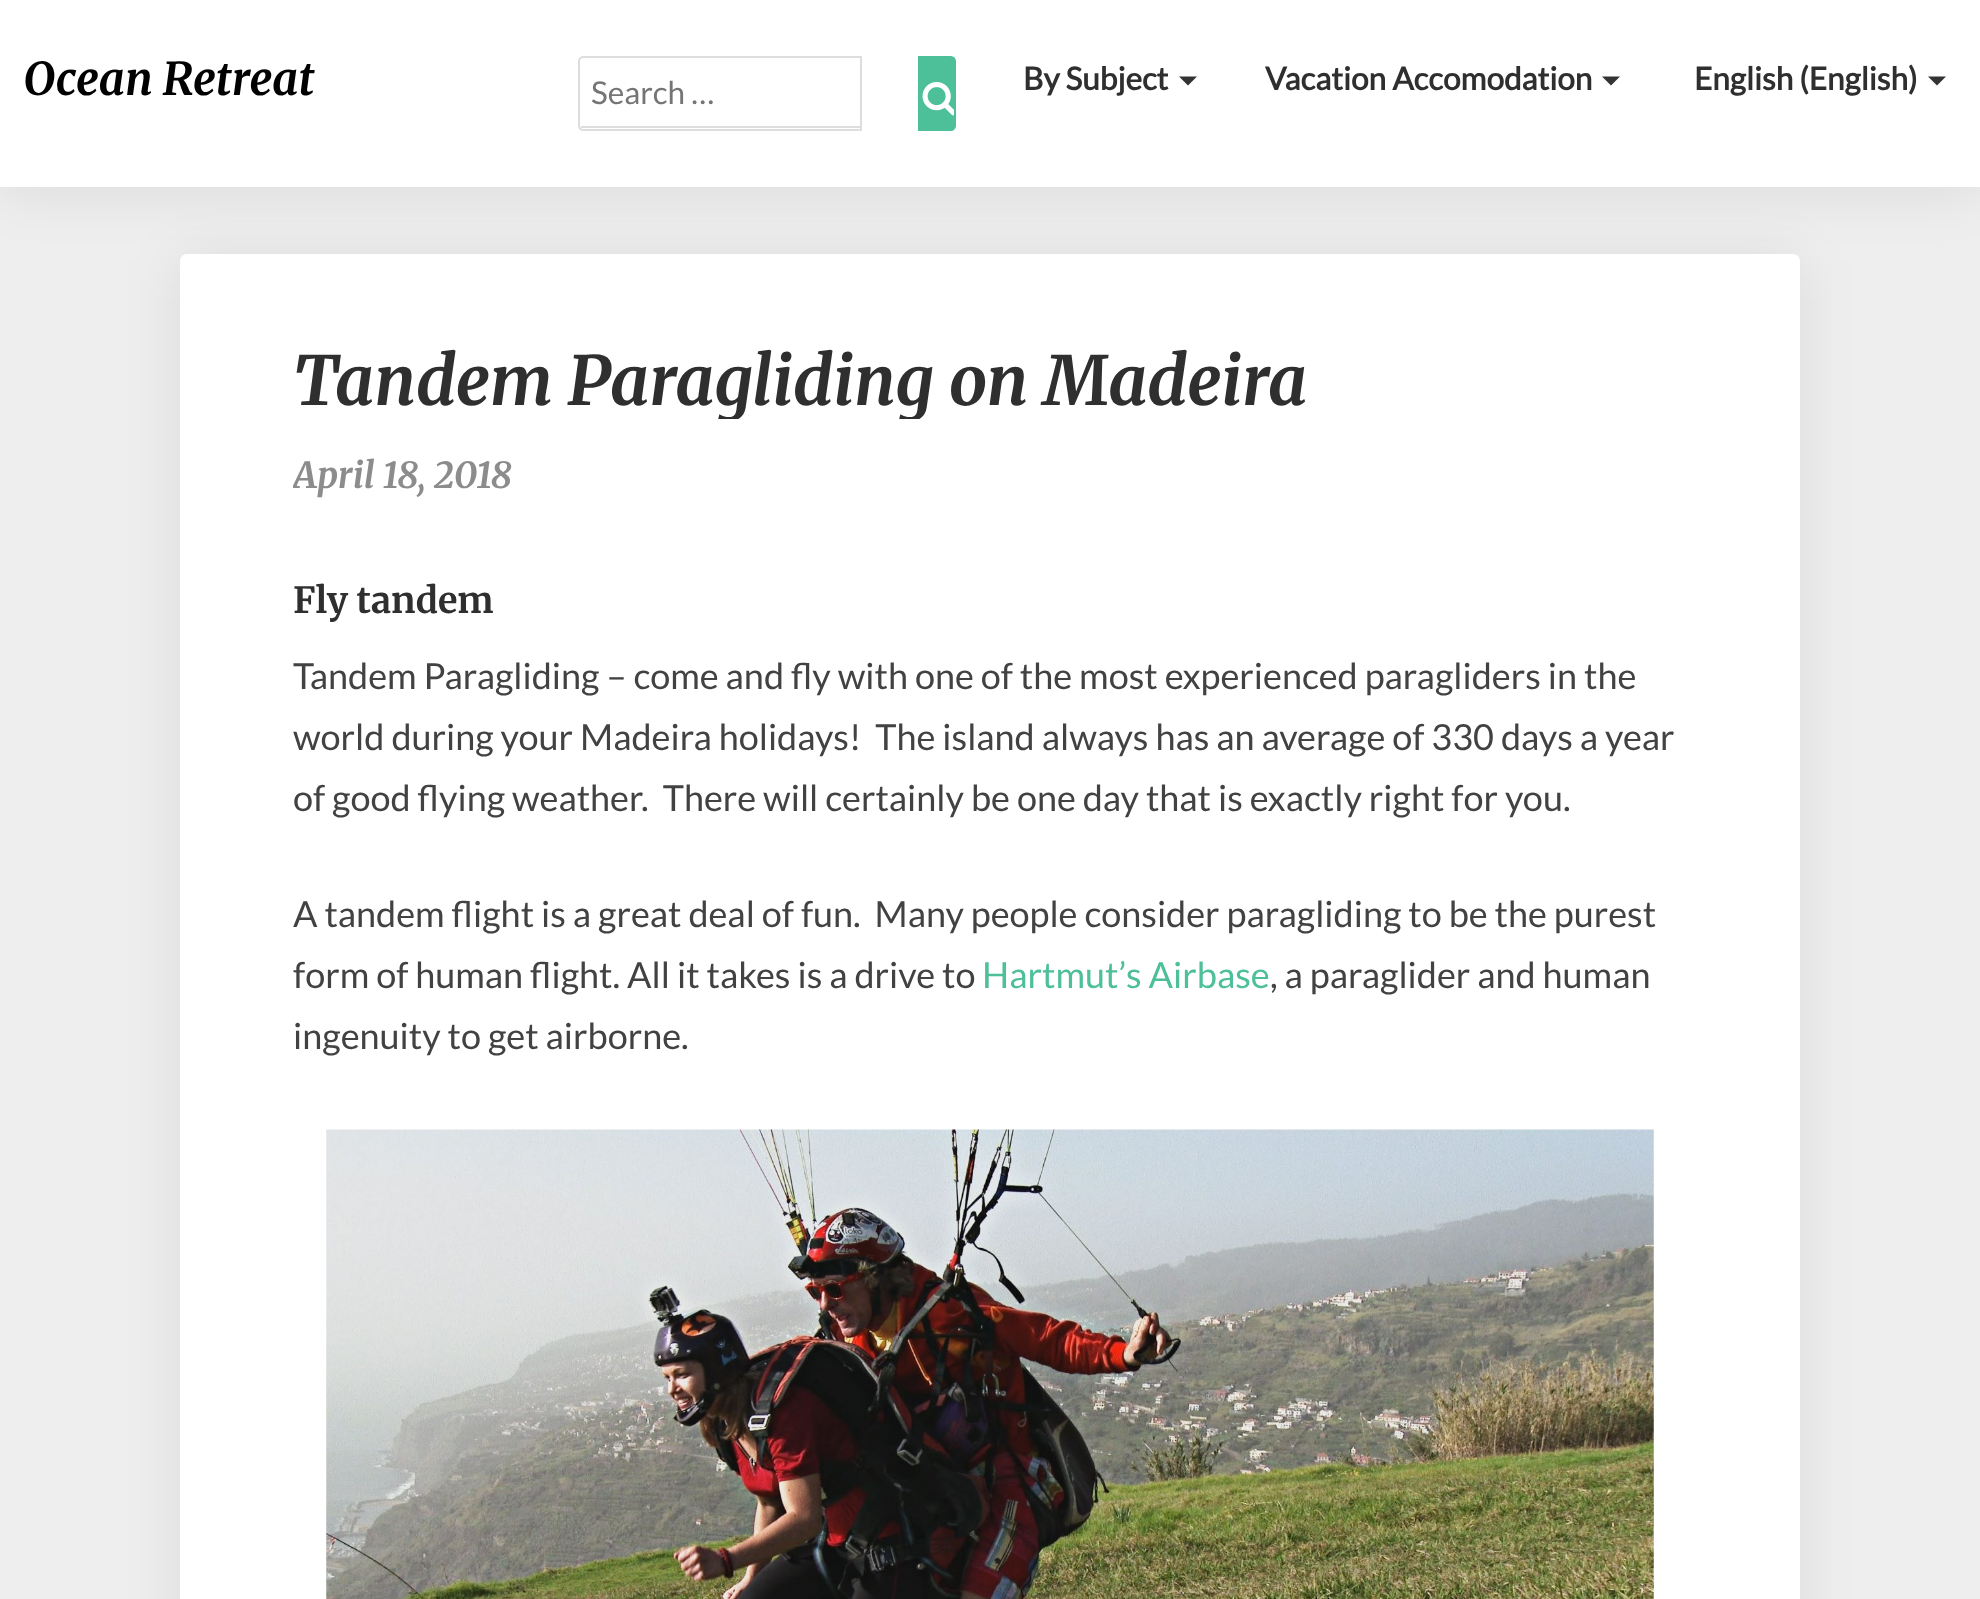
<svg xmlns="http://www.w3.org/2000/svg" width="1980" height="1599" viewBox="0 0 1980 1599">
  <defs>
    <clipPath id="clip1"><path d="M293 344h1395v75H293z"/></clipPath>
    <clipPath id="clip2"><path d="M293 450h1395v92H293z"/></clipPath>
  </defs>
  <rect width="100%" height="100%" fill="#eee"/>
  <rect x="180" y="259" width="1620" height="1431" rx="7" fill="#00000014" filter="blur(28px)"/>
  <rect x="180" y="254" width="1620" height="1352" rx="7" fill="#fff"/>
  <path d="M0 5h1980v186H0z" fill="#00000014" filter="blur(28px)"/>
  <path d="M0 0h1980v187H0z" fill="#fff"/>
  <path d="M583 57H861V130H583C581 130 579 128 579 126V61C579 59 581 57 583 57Z" fill="none" stroke="#ddd" stroke-width="2"/>
  <path d="M581 126h281v2H581z" fill="#ddd"/>
  <path d="M919 57H951C953 57 955 59 955 61V126C955 128 953 130 951 130H919Z" fill="#4dbf99" stroke="#4dbf99" stroke-width="2"/>
  <image x="922" y="82" width="32" height="34" href="img/1.png"/>
  <path d="M1179 76.5H1197L1188 85.5Z" fill="#333"/>
  <path d="M1602 76.5H1620L1611 85.5Z" fill="#333"/>
  <path d="M1928 76.5H1946L1937 85.5Z" fill="#333"/>
  <image x="326" y="1129" width="1328" height="470" href="img/2.png"/>
  <text x="23" y="95" font-family="Merriweather" font-size="45" font-weight="300" font-style="italic" fill="#000">Ocean Retreat</text>
  <text x="591" y="104" font-family="Lato" font-size="31.5" fill="#757575">Search …</text>
  <g font-family="Lato" font-size="31.5" font-weight="bold" fill="#2f2f2f">
    <text x="1023" y="90">By Subject</text>
    <text x="1265" y="90">Vacation Accomodation</text>
    <text x="1694" y="90">English (English)</text>
  </g>
  <g clip-path="url(#clip1)">
    <text x="293" y="405" font-family="Merriweather" font-size="67.5" font-weight="300" font-style="italic" fill="#2f2f2f">Tandem Paragliding on Madeira</text>
  </g>
  <g clip-path="url(#clip2)">
    <text x="293" y="488" font-family="Merriweather" font-size="36" font-weight="300" font-style="italic" fill="#8c8c8c">April 18, 2018</text>
  </g>
  <text x="293" y="613" font-family="Merriweather" font-size="36" font-weight="300" fill="#2f2f2f">Fly tandem</text>
  <g font-family="Lato" font-size="36" fill="#424242">
    <text x="293" y="689">Tandem Paragliding – come and fly with one of the most experienced paragliders in the</text>
    <text x="293" y="750" xml:space="preserve">world during your Madeira holidays!  The island always has an average of 330 days a year</text>
    <text x="293" y="811" xml:space="preserve">of good flying weather.  There will certainly be one day that is exactly right for you.</text>
    <text x="293" y="927" xml:space="preserve">A tandem flight is a great deal of fun.  Many people consider paragliding to be the purest</text>
    <text x="293" y="988">form of human flight. All it takes is a drive to</text>
  </g>
  <text x="982" y="988" font-family="Lato" font-size="36" fill="#4dbf99">Hartmut’s Airbase</text>
  <g font-family="Lato" font-size="36" fill="#424242">
    <text x="1270" y="988">, a paraglider and human</text>
    <text x="293" y="1049">ingenuity to get airborne.</text>
  </g>
</svg>
